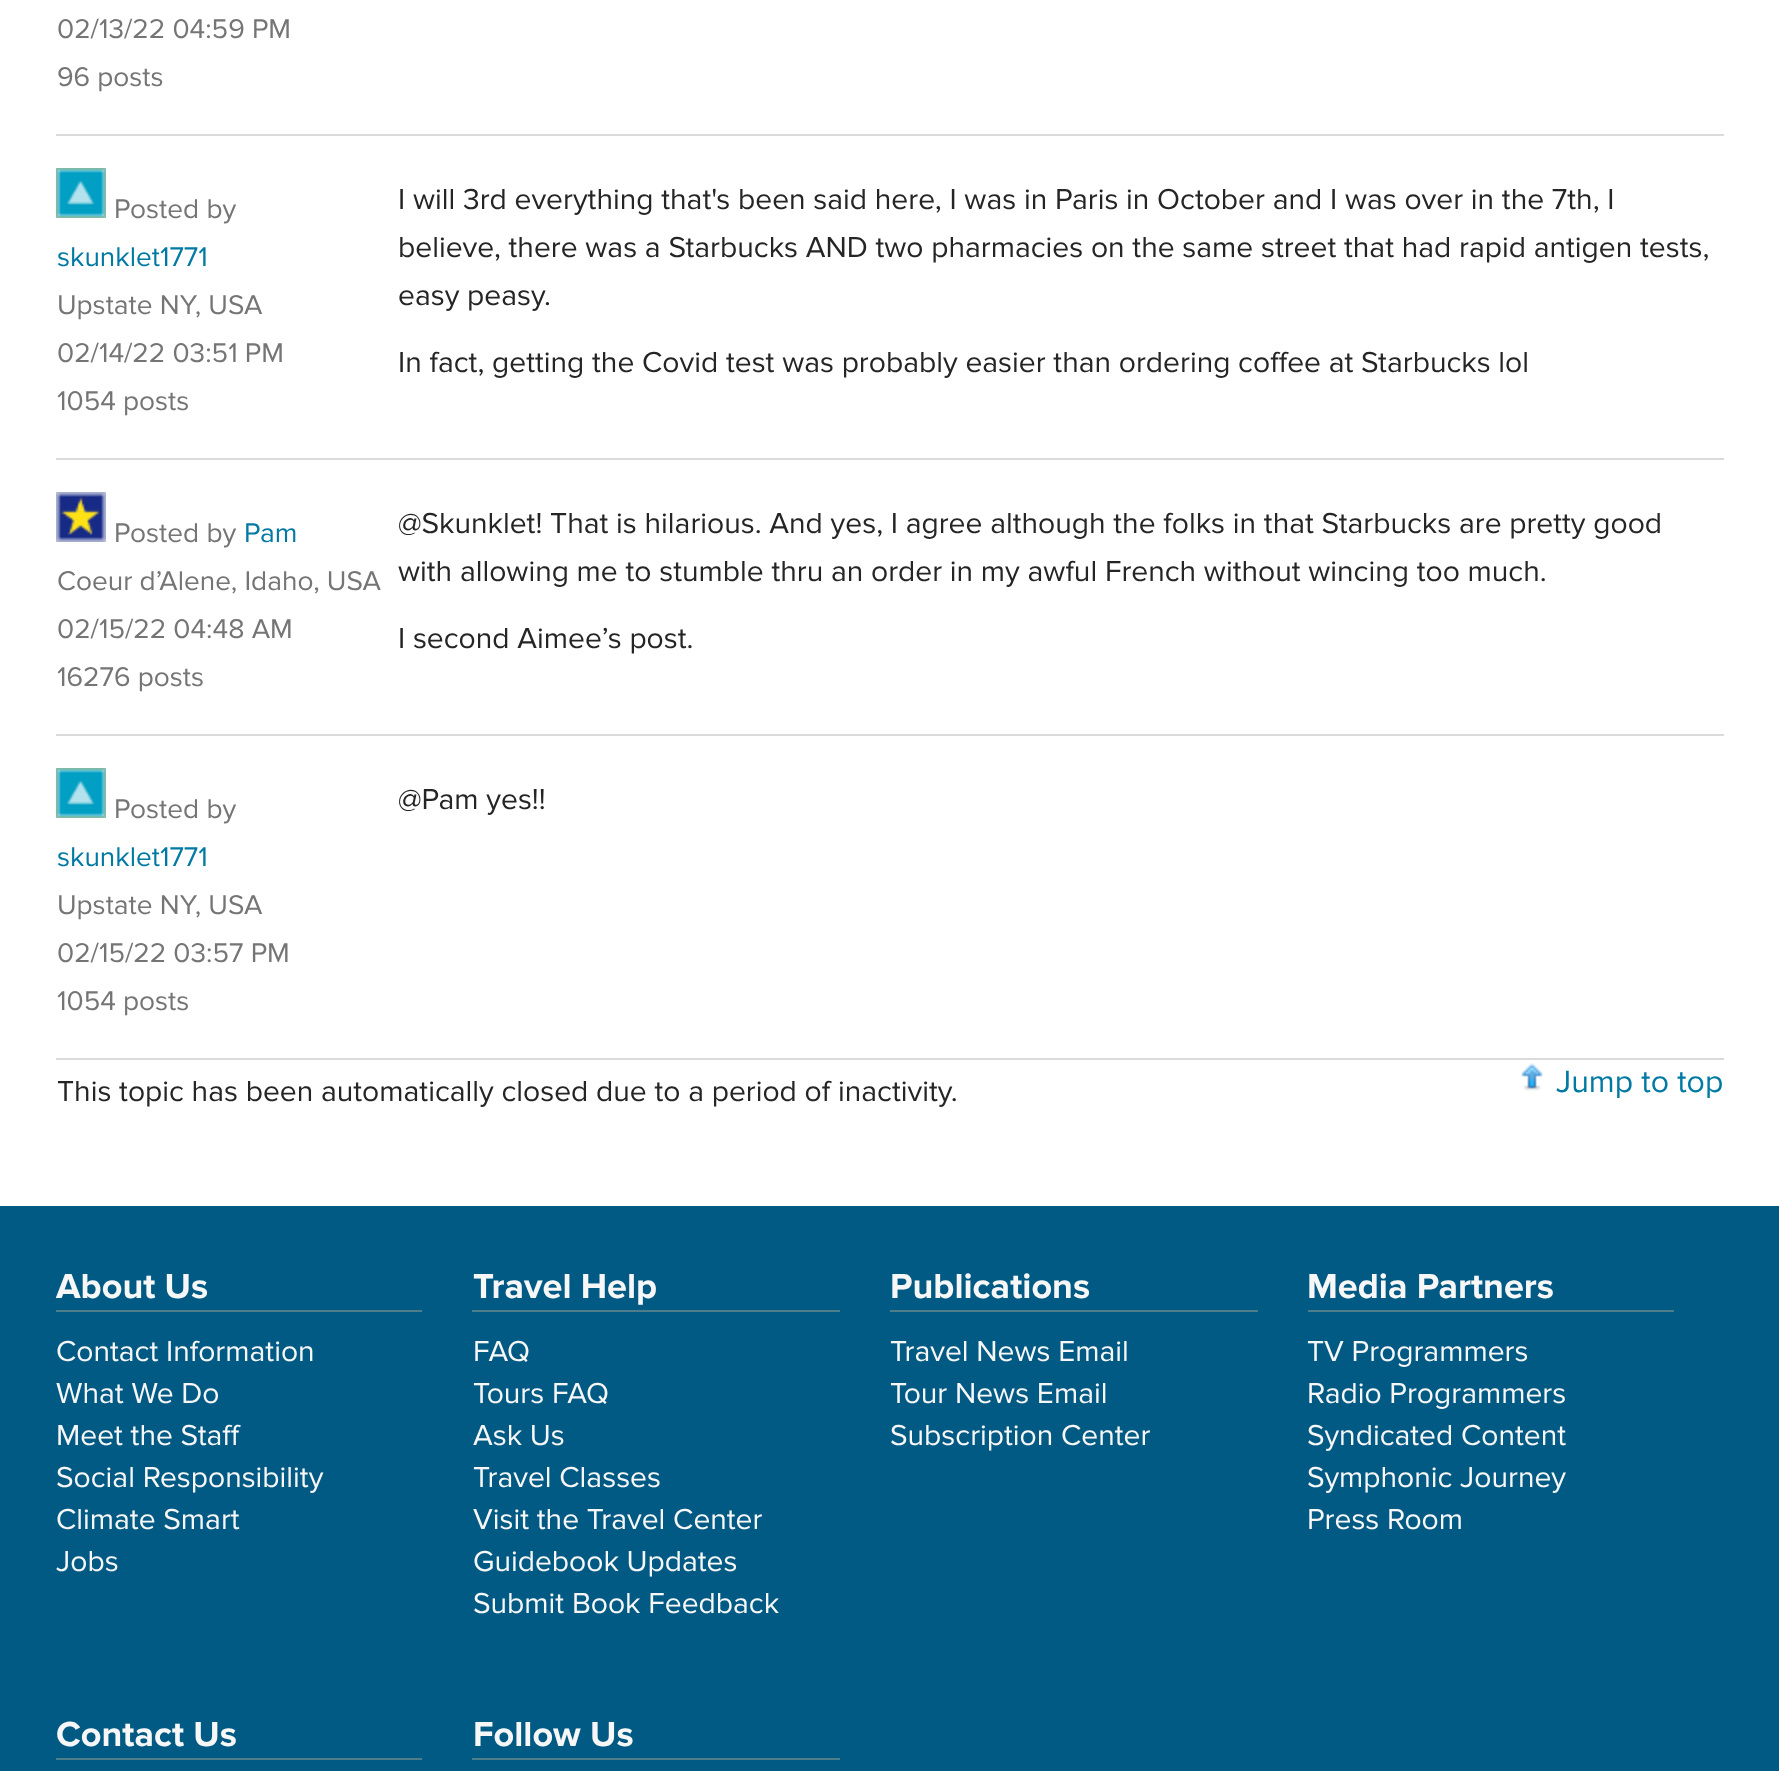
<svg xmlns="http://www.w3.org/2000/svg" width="1779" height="1771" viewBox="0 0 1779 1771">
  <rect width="100%" height="100%" fill="#fff"/>
  <path d="M56 134h1668v2H56z" fill="#dadada"/>
  <path d="M56 458h1668v2H56z" fill="#dadada"/>
  <image x="56" y="168" width="50" height="50" href="img/1.png"/>
  <path d="M56 734h1668v2H56z" fill="#dadada"/>
  <image x="56" y="492" width="50" height="50" href="img/2.png"/>
  <path d="M56 1058h1668v2H56z" fill="#dadada"/>
  <image x="56" y="768" width="50" height="50" href="img/1.png"/>
  <image x="1521" y="1063" width="22" height="28" href="img/3.png"/>
  <path d="M0 1206h1779v565H0z" fill="#005a84"/>
  <path d="M56 1310h366v2H56z" fill="#4e7e8c"/>
  <path d="M472 1310h368v2H472z" fill="#4e7e8c"/>
  <path d="M890 1310h368v2H890z" fill="#4e7e8c"/>
  <path d="M1308 1310h366v2H1308z" fill="#4e7e8c"/>
  <path d="M56 1758h366v2H56z" fill="#4e7e8c"/>
  <path d="M472 1758h368v2H472z" fill="#4e7e8c"/>
  <g font-family="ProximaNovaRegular" font-size="28" fill="#757575">
    <text x="57" y="38">02/13/22 04:59 PM</text>
    <text x="57" y="86">96 posts</text>
    <text x="114" y="218">Posted by</text>
  </g>
  <text x="57" y="266" font-family="ProximaNovaRegular" font-size="28" fill="#007aa3">skunklet1771</text>
  <g font-family="ProximaNovaRegular" font-size="28" fill="#757575">
    <text x="57" y="314">Upstate NY, USA</text>
    <text x="57" y="362">02/14/22 03:51 PM</text>
    <text x="57" y="410">1054 posts</text>
  </g>
  <g font-family="ProximaNovaRegular" font-size="30" fill="#252525">
    <text x="398" y="209">I will 3rd everything that's been said here, I was in Paris in October and I was over in the 7th, I</text>
    <text x="398" y="257">believe, there was a Starbucks AND two pharmacies on the same street that had rapid antigen tests,</text>
    <text x="398" y="305">easy peasy.</text>
    <text x="398" y="372">In fact, getting the Covid test was probably easier than ordering coffee at Starbucks lol</text>
  </g>
  <text x="244" y="542" font-family="ProximaNovaRegular" font-size="28" fill="#007aa3">Pam</text>
  <g font-family="ProximaNovaRegular" font-size="28" fill="#757575">
    <text x="57" y="590">Coeur d’Alene, Idaho, USA</text>
    <text x="114" y="542">Posted by</text>
    <text x="57" y="638">02/15/22 04:48 AM</text>
    <text x="57" y="686">16276 posts</text>
  </g>
  <g font-family="ProximaNovaRegular" font-size="30" fill="#252525">
    <text x="398" y="533">@Skunklet! That is hilarious. And yes, I agree although the folks in that Starbucks are pretty good</text>
    <text x="398" y="581">with allowing me to stumble thru an order in my awful French without wincing too much.</text>
    <text x="398" y="648">I second Aimee’s post.</text>
  </g>
  <text x="114" y="818" font-family="ProximaNovaRegular" font-size="28" fill="#757575">Posted by</text>
  <text x="57" y="866" font-family="ProximaNovaRegular" font-size="28" fill="#007aa3">skunklet1771</text>
  <g font-family="ProximaNovaRegular" font-size="28" fill="#757575">
    <text x="57" y="914">Upstate NY, USA</text>
    <text x="57" y="962">02/15/22 03:57 PM</text>
    <text x="57" y="1010">1054 posts</text>
  </g>
  <g font-family="ProximaNovaRegular" font-size="30" fill="#252525">
    <text x="398" y="809">@Pam yes!!</text>
    <text x="57" y="1101">This topic has been automatically closed due to a period of inactivity.</text>
  </g>
  <text x="1556" y="1092" font-family="ProximaNovaRegular" font-size="32" fill="#007aa3">Jump to top</text>
  <text x="56" y="1298" font-family="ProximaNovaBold" font-size="36" font-weight="bold" fill="#f7f7f7">About Us</text>
  <g font-family="ProximaNovaRegular" font-size="30" fill="#f7f7f7">
    <text x="56" y="1361">Contact Information</text>
    <text x="56" y="1403">What We Do</text>
    <text x="56" y="1445">Meet the Staff</text>
    <text x="56" y="1487">Social Responsibility</text>
    <text x="56" y="1529">Climate Smart</text>
    <text x="56" y="1571">Jobs</text>
  </g>
  <text x="473" y="1298" font-family="ProximaNovaBold" font-size="36" font-weight="bold" fill="#f7f7f7">Travel Help</text>
  <g font-family="ProximaNovaRegular" font-size="30" fill="#f7f7f7">
    <text x="473" y="1361">FAQ</text>
    <text x="473" y="1403">Tours FAQ</text>
    <text x="473" y="1445">Ask Us</text>
    <text x="473" y="1487">Travel Classes</text>
    <text x="473" y="1529">Visit the Travel Center</text>
    <text x="473" y="1571">Guidebook Updates</text>
    <text x="473" y="1613">Submit Book Feedback</text>
  </g>
  <text x="890" y="1298" font-family="ProximaNovaBold" font-size="36" font-weight="bold" fill="#f7f7f7">Publications</text>
  <g font-family="ProximaNovaRegular" font-size="30" fill="#f7f7f7">
    <text x="890" y="1361">Travel News Email</text>
    <text x="890" y="1403">Tour News Email</text>
    <text x="890" y="1445">Subscription Center</text>
  </g>
  <text x="1307" y="1298" font-family="ProximaNovaBold" font-size="36" font-weight="bold" fill="#f7f7f7">Media Partners</text>
  <g font-family="ProximaNovaRegular" font-size="30" fill="#f7f7f7">
    <text x="1307" y="1361">TV Programmers</text>
    <text x="1307" y="1403">Radio Programmers</text>
    <text x="1307" y="1445">Syndicated Content</text>
    <text x="1307" y="1487">Symphonic Journey</text>
    <text x="1307" y="1529">Press Room</text>
  </g>
  <g font-family="ProximaNovaBold" font-size="36" font-weight="bold" fill="#f7f7f7">
    <text x="56" y="1746">Contact Us</text>
    <text x="473" y="1746">Follow Us</text>
  </g>
</svg>
